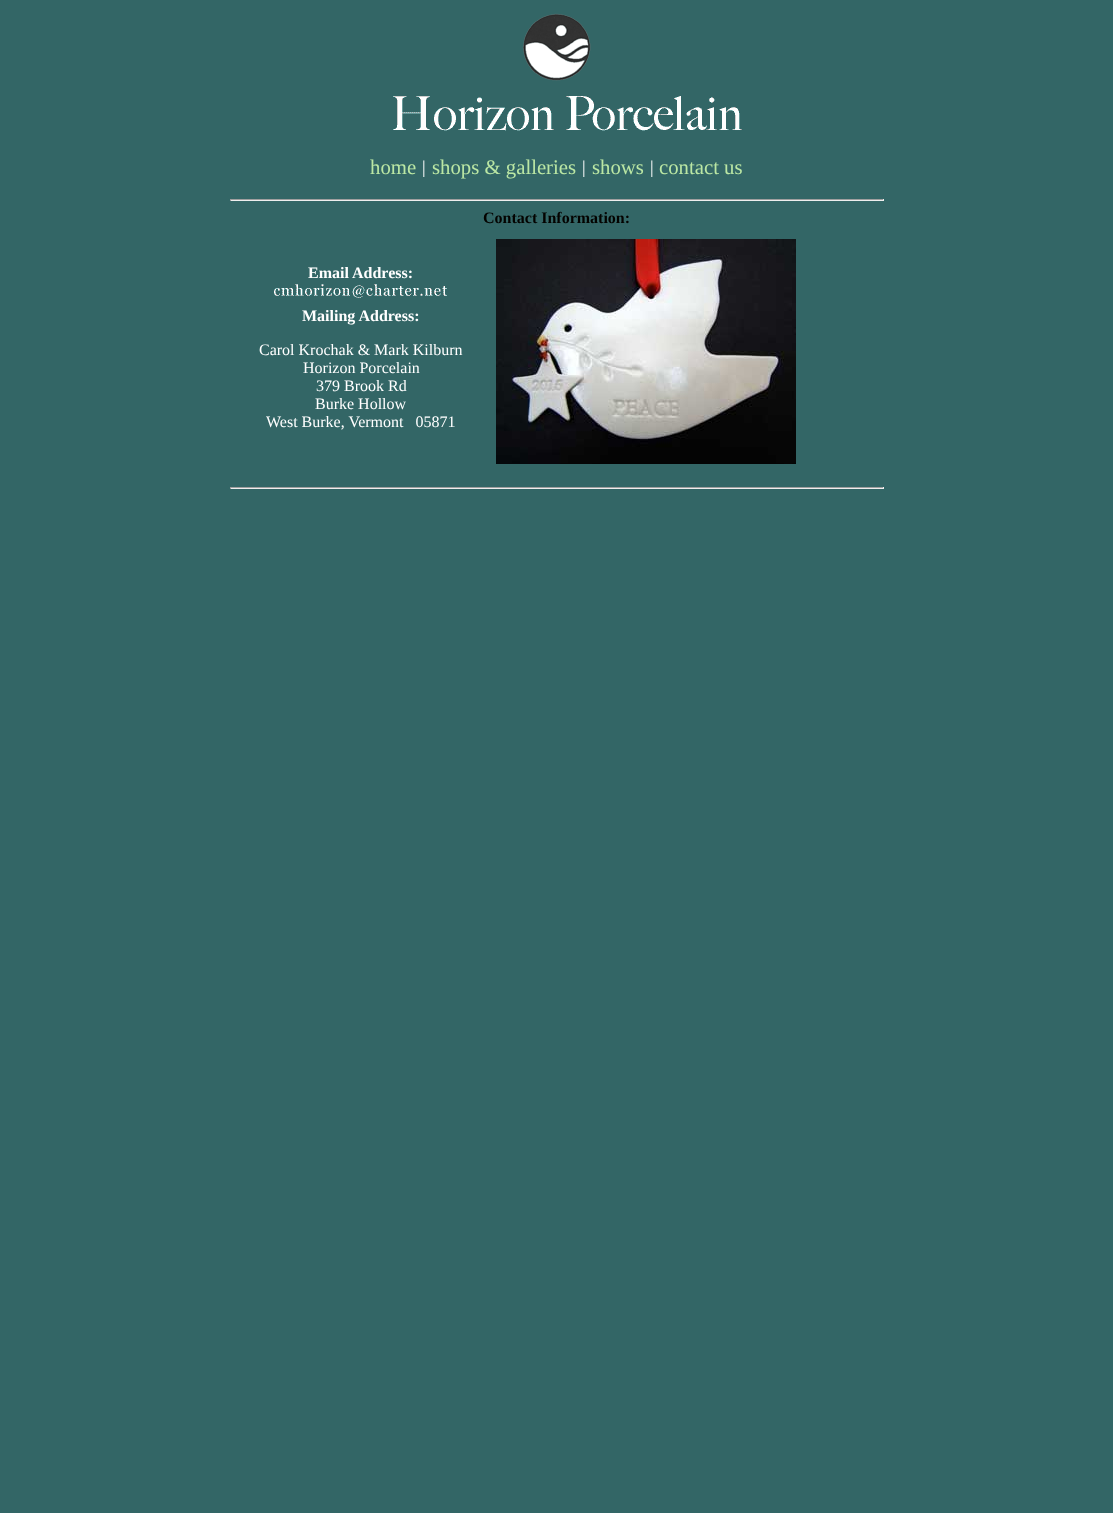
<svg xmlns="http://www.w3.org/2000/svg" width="1113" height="1513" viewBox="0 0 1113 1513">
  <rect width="100%" height="100%" fill="#366"/>
  <image x="522" y="13" width="69" height="68" href="img/1.png"/>
  <image x="393" y="96" width="349" height="35" href="img/2.png"/>
  <path d="M230 199h654v1H230z" fill="#9f9f9f"/>
  <path d="M883 199h1v2H883z" fill="#eee"/>
  <path d="M230 200h654v1H230z" fill="#eee"/>
  <path d="M230 199h1v2H230z" fill="#9f9f9f"/>
  <image x="274" y="284" width="173" height="14" href="img/3.png"/>
  <image x="496" y="239" width="300" height="225" href="img/4.png"/>
  <path d="M230 487h654v1H230z" fill="#9f9f9f"/>
  <path d="M883 487h1v2H883z" fill="#eee"/>
  <path d="M230 488h654v1H230z" fill="#eee"/>
  <path d="M230 487h1v2H230z" fill="#9f9f9f"/>
  <text x="370" y="174" font-family="Liberation Serif" font-size="20.75" fill="#bbe7a4">home</text>
  <text x="422" y="173" font-family="Liberation Serif" font-size="18" fill="#fff">|</text>
  <text x="432" y="174" font-family="Liberation Serif" font-size="20.75" fill="#bbe7a4">shops &amp; galleries</text>
  <text x="582" y="173" font-family="Liberation Serif" font-size="18" fill="#fff">|</text>
  <text x="592" y="174" font-family="Liberation Serif" font-size="20.75" fill="#bbe7a4">shows</text>
  <text x="650" y="173" font-family="Liberation Serif" font-size="18" fill="#fff">|</text>
  <text x="659" y="174" font-family="Liberation Serif" font-size="20.75" fill="#bbe7a4">contact us</text>
  <text x="483" y="223" font-family="Liberation Serif" font-size="16" font-weight="bold" fill="#040300">Contact Information:</text>
  <g font-family="Liberation Serif" font-size="16" font-weight="bold" fill="#fff">
    <text x="308" y="278">Email Address:</text>
    <text x="302" y="321">Mailing Address:</text>
  </g>
  <g font-family="Liberation Serif" font-size="16" fill="#fff">
    <text x="259" y="355">Carol Krochak &amp; Mark Kilburn</text>
    <text x="303" y="373">Horizon Porcelain</text>
    <text x="316" y="391">379 Brook Rd</text>
    <text x="315" y="409">Burke Hollow</text>
    <text x="266" y="427" xml:space="preserve">West Burke, Vermont   05871</text>
  </g>
</svg>
